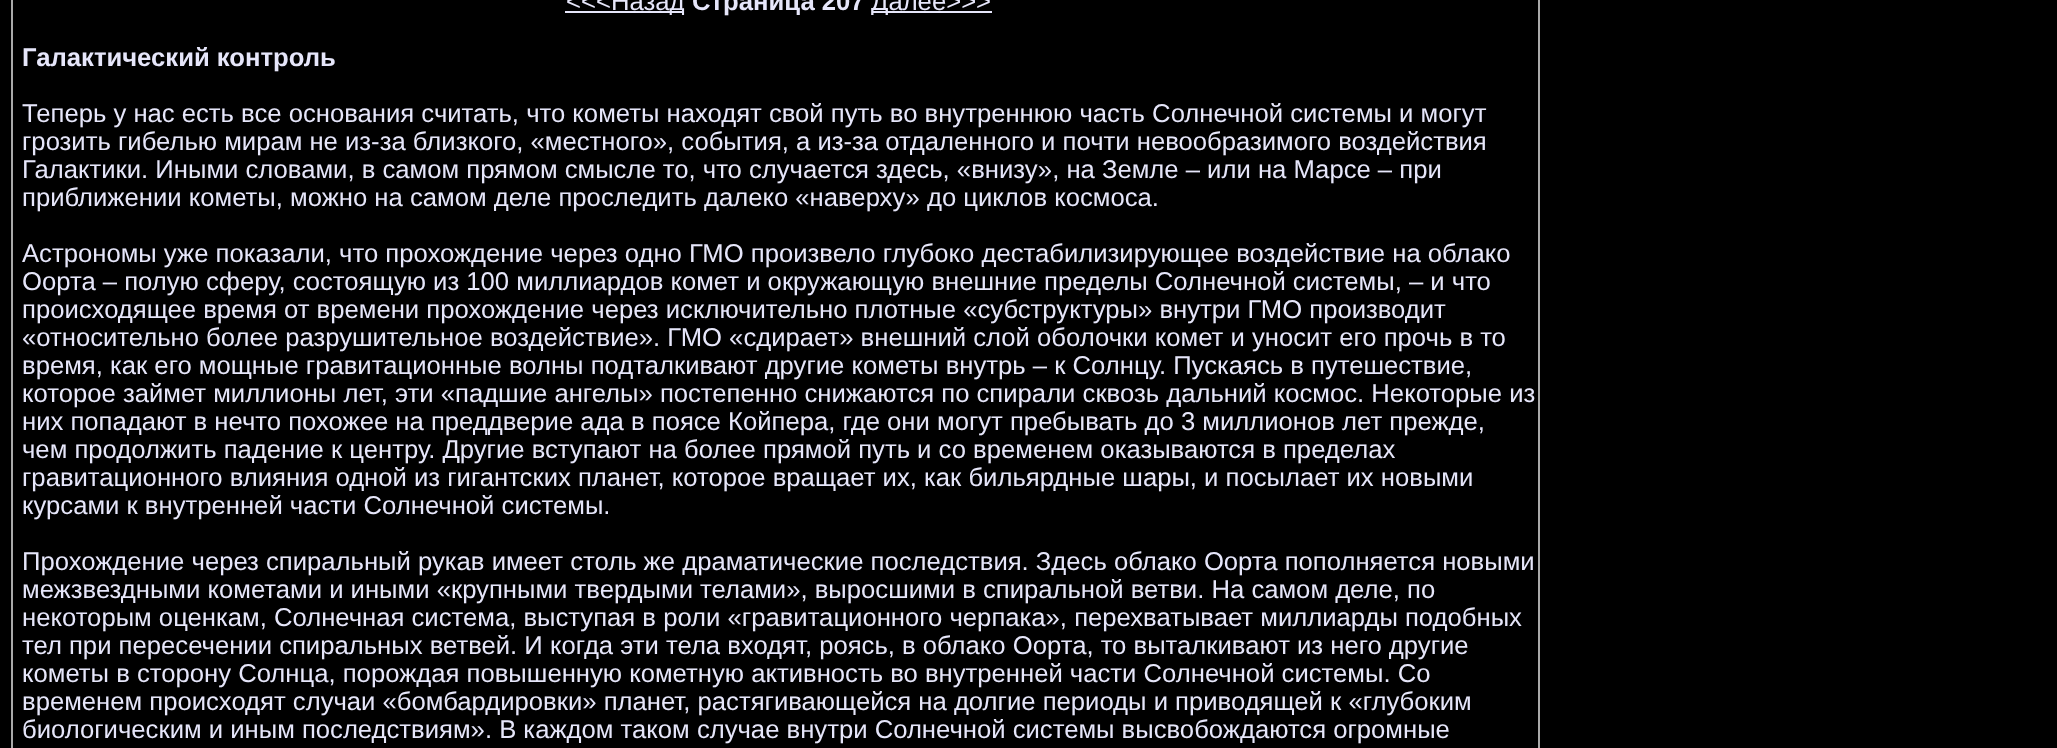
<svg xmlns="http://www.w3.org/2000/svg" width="2057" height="748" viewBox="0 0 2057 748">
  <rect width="100%" height="100%" fill="#000"/>
  <path d="M1538 0h2v748H1538z" fill="#a9a9a9"/>
  <path d="M11 0h2v748H11z" fill="#a9a9a9"/>
  <path d="M565 11h119v2H565z" fill="#e6e6fa"/>
  <path d="M872 11h120v2H872z" fill="#e6e6fa"/>
  <text x="566" y="10" font-family="Liberation Sans" font-size="25.67" fill="#e6e6fa">&lt;&lt;&lt;Назад</text>
  <text x="692" y="10" font-family="Liberation Sans" font-size="25.67" font-weight="bold" fill="#e6e6fa">Страница 207</text>
  <text x="871" y="10" font-family="Liberation Sans" font-size="25.67" fill="#e6e6fa">Далее&gt;&gt;&gt;</text>
  <text x="22" y="66" font-family="Liberation Sans" font-size="25.67" font-weight="bold" fill="#e6e6fa">Галактический контроль</text>
  <g font-family="Liberation Sans" font-size="25.67" fill="#e6e6fa">
    <text x="22" y="122">Теперь у нас есть все основания считать, что кометы находят свой путь во внутреннюю часть Солнечной системы и могут</text>
    <text x="22" y="150">грозить гибелью мирам не из-за близкого, «местного», события, а из-за отдаленного и почти невообразимого воздействия</text>
    <text x="22" y="178">Галактики. Иными словами, в самом прямом смысле то, что случается здесь, «внизу», на Земле – или на Марсе – при</text>
    <text x="22" y="206">приближении кометы, можно на самом деле проследить далеко «наверху» до циклов космоса.</text>
    <text x="22" y="262">Астрономы уже показали, что прохождение через одно ГМО произвело глубоко дестабилизирующее воздействие на облако</text>
    <text x="22" y="290">Оорта – полую сферу, состоящую из 100 миллиардов комет и окружающую внешние пределы Солнечной системы, – и что</text>
    <text x="22" y="318">происходящее время от времени прохождение через исключительно плотные «субструктуры» внутри ГМО производит</text>
    <text x="22" y="346">«относительно более разрушительное воздействие». ГМО «сдирает» внешний слой оболочки комет и уносит его прочь в то</text>
    <text x="22" y="374">время, как его мощные гравитационные волны подталкивают другие кометы внутрь – к Солнцу. Пускаясь в путешествие,</text>
    <text x="22" y="402">которое займет миллионы лет, эти «падшие ангелы» постепенно снижаются по спирали сквозь дальний космос. Некоторые из</text>
    <text x="22" y="430">них попадают в нечто похожее на преддверие ада в поясе Койпера, где они могут пребывать до 3 миллионов лет прежде,</text>
    <text x="22" y="458">чем продолжить падение к центру. Другие вступают на более прямой путь и со временем оказываются в пределах</text>
    <text x="22" y="486">гравитационного влияния одной из гигантских планет, которое вращает их, как бильярдные шары, и посылает их новыми</text>
    <text x="22" y="514">курсами к внутренней части Солнечной системы.</text>
    <text x="22" y="570">Прохождение через спиральный рукав имеет столь же драматические последствия. Здесь облако Оорта пополняется новыми</text>
    <text x="22" y="598">межзвездными кометами и иными «крупными твердыми телами», выросшими в спиральной ветви. На самом деле, по</text>
    <text x="22" y="626">некоторым оценкам, Солнечная система, выступая в роли «гравитационного черпака», перехватывает миллиарды подобных</text>
    <text x="22" y="654">тел при пересечении спиральных ветвей. И когда эти тела входят, роясь, в облако Оорта, то выталкивают из него другие</text>
    <text x="22" y="682">кометы в сторону Солнца, порождая повышенную кометную активность во внутренней части Солнечной системы. Со</text>
    <text x="22" y="710">временем происходят случаи «бомбардировки» планет, растягивающейся на долгие периоды и приводящей к «глубоким</text>
    <text x="22" y="738">биологическим и иным последствиям». В каждом таком случае внутри Солнечной системы высвобождаются огромные</text>
  </g>
</svg>
